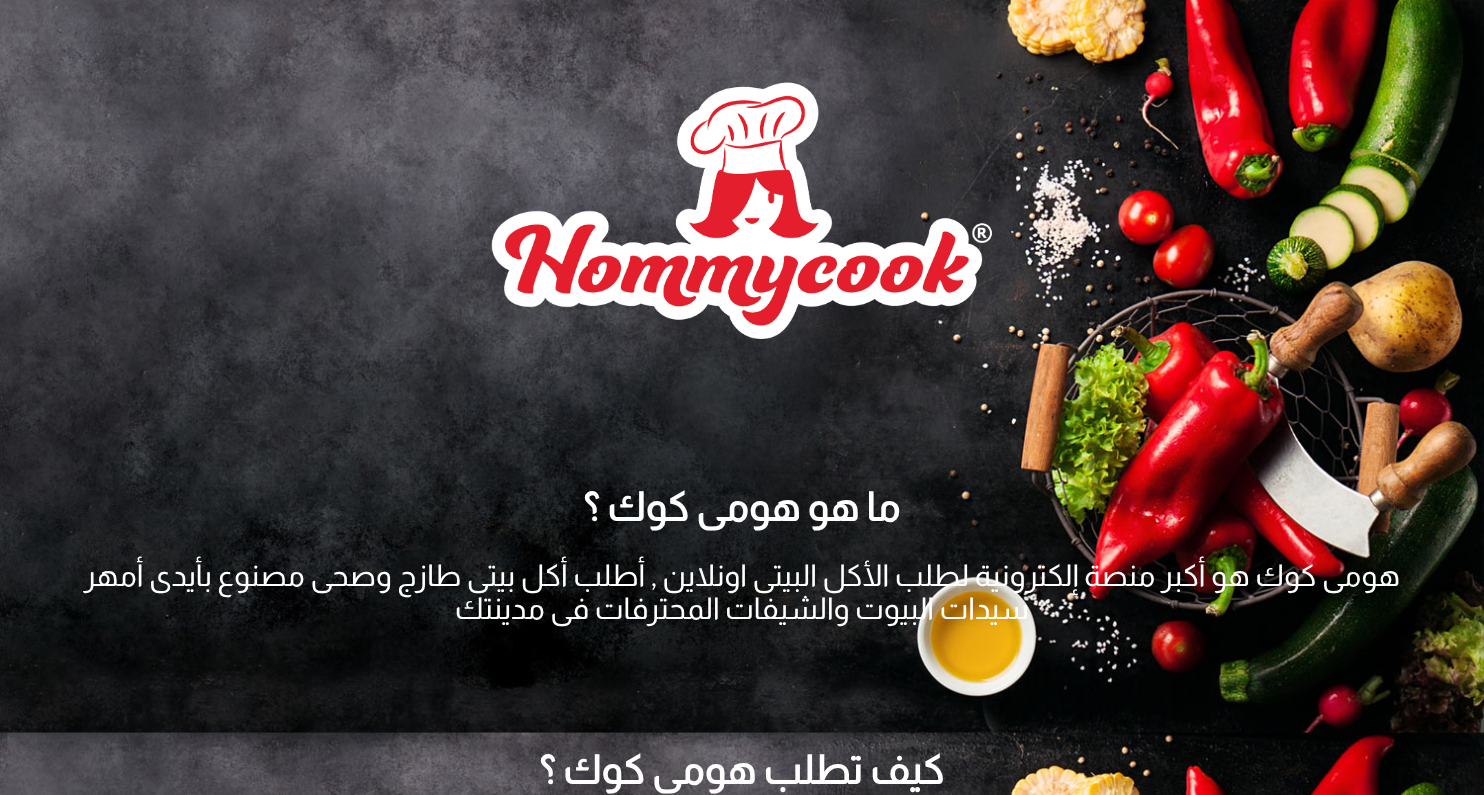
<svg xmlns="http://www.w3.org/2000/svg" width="1484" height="795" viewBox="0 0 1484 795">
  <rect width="100%" height="100%" fill="#fff"/>
  <image x="0" y="0" width="1484" height="795" href="img/1.png"/>
  <image x="491" y="82" width="501" height="257" href="img/2.png"/>
  <text x="900" y="521" font-family="Almarai" font-size="40" font-weight="bold" direction="rtl" fill="#fff">ما هو هومى كوك ؟</text>
  <g font-family="Almarai" font-size="30" direction="rtl" fill="#fff">
    <text x="1400" y="586">هومى كوك هو أكبر منصة إلكترونية لطلب الأكل البيتى اونلاين , أطلب أكل بيتى طازج وصحى مصنوع بأيدى أمهر</text>
    <text x="1029" y="619">سيدات البيوت والشيفات المحترفات فى مدينتك</text>
  </g>
  <text x="944" y="784" font-family="Almarai" font-size="40" font-weight="bold" direction="rtl" fill="#fff">كيف تطلب هومى كوك ؟</text>
</svg>
